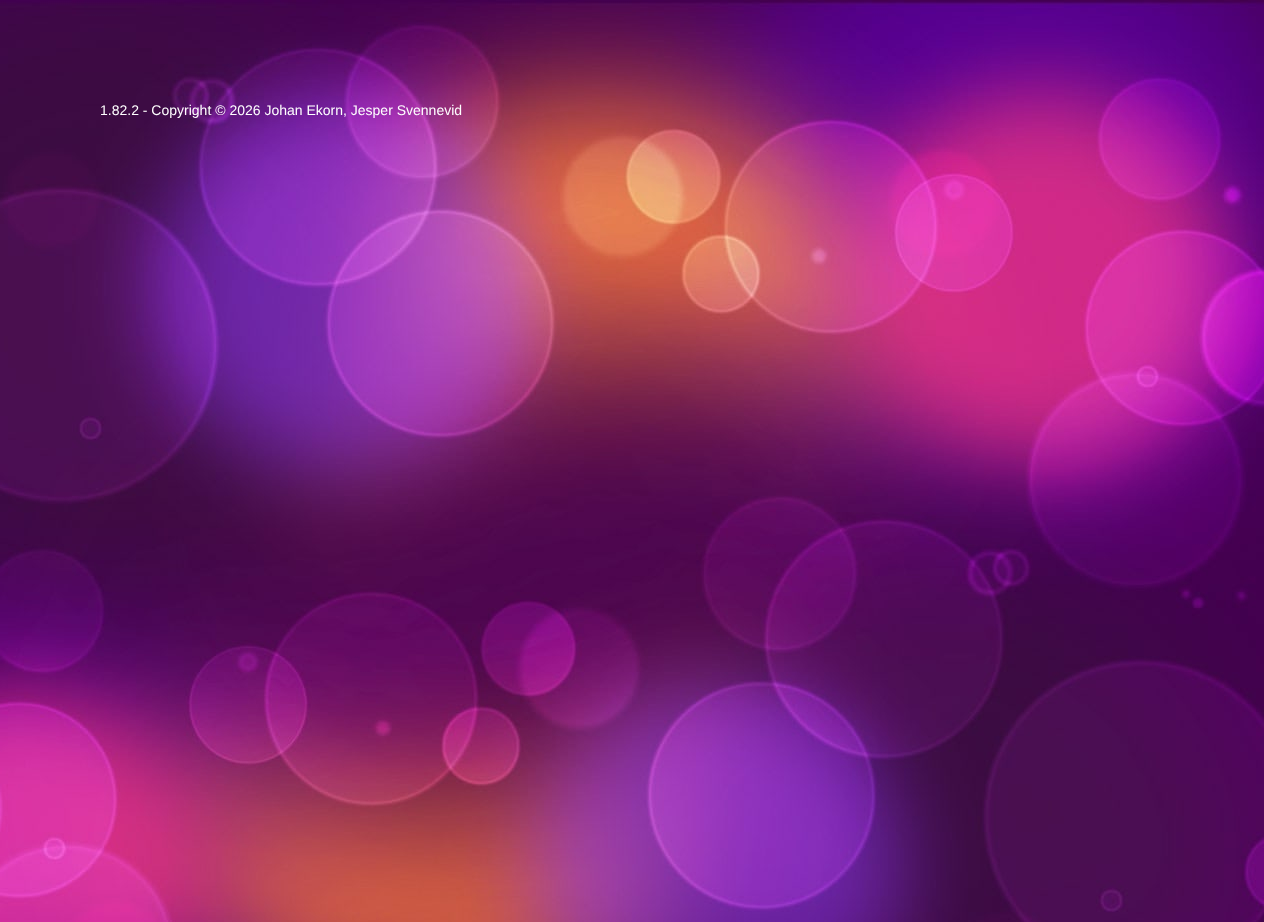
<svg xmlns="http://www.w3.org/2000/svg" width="1264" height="922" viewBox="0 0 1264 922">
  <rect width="100%" height="100%" fill="#fff"/>
  <image x="0" y="0" width="1264" height="922" href="img/1.png"/>
  <text x="100" y="115" font-family="Liberation Sans" font-size="14" fill="#fff">1.82.2 - Copyright © 2026 Johan Ekorn, Jesper Svennevid</text>
</svg>
